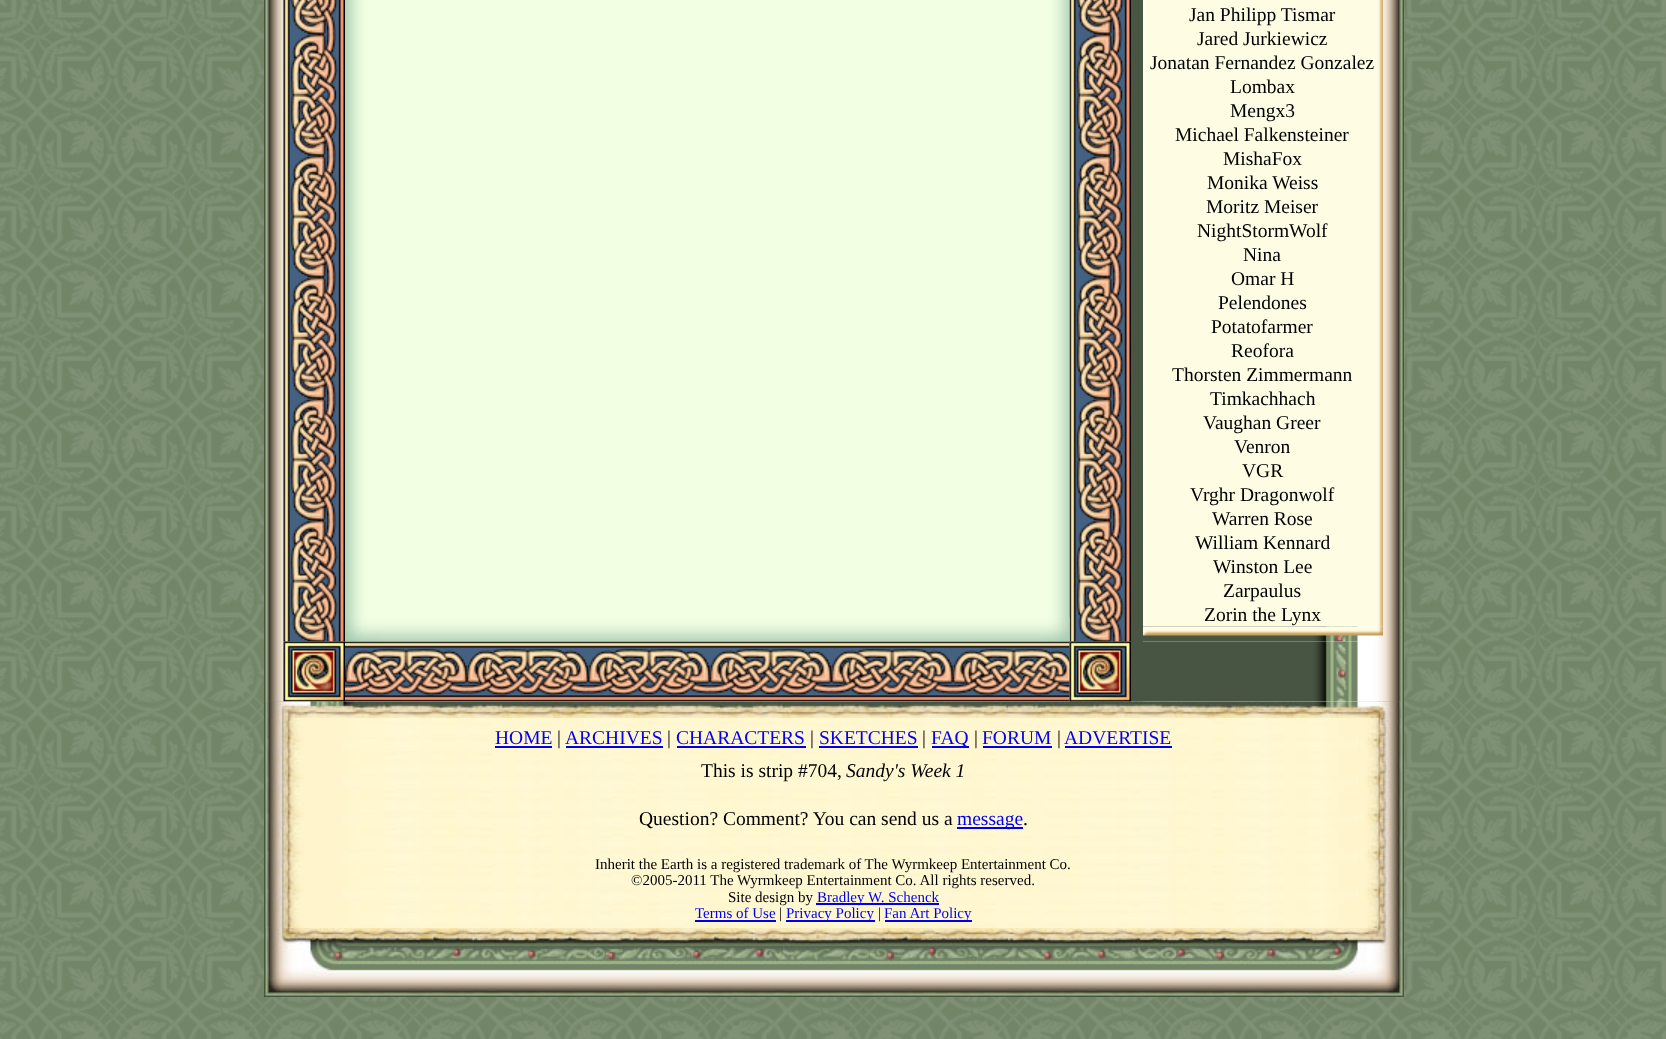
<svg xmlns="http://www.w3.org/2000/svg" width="1666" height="1039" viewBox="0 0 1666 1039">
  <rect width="100%" height="100%" fill="#fff"/>
  <image x="0" y="0" width="1666" height="1039" href="img/1.png"/>
  <image x="264" y="0" width="1140" height="702" href="img/2.png"/>
  <image x="1069" y="0" width="62" height="642" href="img/5.png"/>
  <image x="345" y="0" width="725" height="541" href="img/3.png"/>
  <image x="283" y="0" width="62" height="642" href="img/4.png"/>
  <path d="M1131 0h12v702H1131z" fill="#495543"/>
  <image x="1143" y="626" width="215" height="16" href="img/6.png"/>
  <image x="1143" y="0" width="240" height="627" href="img/7.png"/>
  <image x="1143" y="626" width="240" height="10" href="img/8.png"/>
  <image x="345" y="541" width="725" height="101" href="img/9.png"/>
  <image x="345" y="641" width="725" height="61" href="img/12.png"/>
  <image x="345" y="617" width="725" height="25" href="img/10.png"/>
  <image x="1143" y="641" width="240" height="61" href="img/14.png"/>
  <image x="264" y="701" width="1140" height="227" href="img/15.png"/>
  <image x="283" y="641" width="62" height="61" href="img/11.png"/>
  <image x="1069" y="641" width="62" height="61" href="img/13.png"/>
  <image x="264" y="701" width="1140" height="17" href="img/16.png"/>
  <path d="M495 746h57v2H495z" fill="#00e"/>
  <path d="M566 746h97v2H566z" fill="#00e"/>
  <path d="M677 746h129v2H677z" fill="#00e"/>
  <path d="M819 746h99v2H819z" fill="#00e"/>
  <path d="M932 746h37v2H932z" fill="#00e"/>
  <path d="M983 746h69v2H983z" fill="#00e"/>
  <path d="M1065 746h107v2H1065z" fill="#00e"/>
  <path d="M957 827h66v2H957z" fill="#00e"/>
  <path d="M816 903h123v2H816z" fill="#00e"/>
  <path d="M695 920h81v2H695z" fill="#00e"/>
  <path d="M786 920h89v2H786z" fill="#00e"/>
  <path d="M885 920h87v2H885z" fill="#00e"/>
  <image x="264" y="928" width="1140" height="69" href="img/17.png"/>
  <g font-family="Liberation Serif" font-size="19.5" fill="#000">
    <text x="1189" y="21">Jan Philipp Tismar</text>
    <text x="1197" y="45">Jared Jurkiewicz</text>
    <text x="1150" y="69">Jonatan Fernandez Gonzalez</text>
    <text x="1230" y="93">Lombax</text>
    <text x="1230" y="117">Mengx3</text>
    <text x="1175" y="141">Michael Falkensteiner</text>
    <text x="1223" y="165">MishaFox</text>
    <text x="1207" y="189">Monika Weiss</text>
    <text x="1206" y="213">Moritz Meiser</text>
    <text x="1197" y="237">NightStormWolf</text>
    <text x="1243" y="261">Nina</text>
    <text x="1231" y="285">Omar H</text>
    <text x="1218" y="309">Pelendones</text>
    <text x="1211" y="333">Potatofarmer</text>
    <text x="1231" y="357">Reofora</text>
    <text x="1172" y="381">Thorsten Zimmermann</text>
    <text x="1210" y="405">Timkachhach</text>
    <text x="1203" y="429">Vaughan Greer</text>
    <text x="1234" y="453">Venron</text>
    <text x="1242" y="477">VGR</text>
    <text x="1190" y="501">Vrghr Dragonwolf</text>
    <text x="1212" y="525">Warren Rose</text>
    <text x="1195" y="549">William Kennard</text>
    <text x="1213" y="573">Winston Lee</text>
    <text x="1223" y="597">Zarpaulus</text>
    <text x="1204" y="621">Zorin the Lynx</text>
  </g>
  <text x="495" y="744" font-family="Liberation Serif" font-size="19.5" fill="#00e">HOME</text>
  <text x="557" y="744" font-family="Liberation Serif" font-size="19.5" fill="#000">|</text>
  <text x="565" y="744" font-family="Liberation Serif" font-size="19.5" fill="#00e">ARCHIVES</text>
  <text x="667" y="744" font-family="Liberation Serif" font-size="19.5" fill="#000">|</text>
  <text x="676" y="744" font-family="Liberation Serif" font-size="19.5" fill="#00e">CHARACTERS</text>
  <text x="810" y="744" font-family="Liberation Serif" font-size="19.5" fill="#000">|</text>
  <text x="819" y="744" font-family="Liberation Serif" font-size="19.5" fill="#00e">SKETCHES</text>
  <text x="922" y="744" font-family="Liberation Serif" font-size="19.5" fill="#000">|</text>
  <text x="931" y="744" font-family="Liberation Serif" font-size="19.5" fill="#00e">FAQ</text>
  <text x="974" y="744" font-family="Liberation Serif" font-size="19.5" fill="#000">|</text>
  <text x="982" y="744" font-family="Liberation Serif" font-size="19.5" fill="#00e">FORUM</text>
  <text x="1057" y="744" font-family="Liberation Serif" font-size="19.5" fill="#000">|</text>
  <text x="1064" y="744" font-family="Liberation Serif" font-size="19.5" fill="#00e">ADVERTISE</text>
  <text x="701" y="777" font-family="Liberation Serif" font-size="19.5" fill="#000">This is strip #704,</text>
  <text x="846" y="777" font-family="Liberation Serif" font-size="19.5" font-style="italic" fill="#000">Sandy's Week 1</text>
  <text x="639" y="825" font-family="Liberation Serif" font-size="19.5" fill="#000">Question? Comment? You can send us a</text>
  <text x="957" y="825" font-family="Liberation Serif" font-size="19.5" fill="#00e">message</text>
  <text x="1023" y="825" font-family="Liberation Serif" font-size="19.5" fill="#000">.</text>
  <g font-family="Liberation Serif" font-size="15" fill="#000">
    <text x="595" y="869">Inherit the Earth is a registered trademark of The Wyrmkeep Entertainment Co.</text>
    <text x="631" y="885">©2005-2011 The Wyrmkeep Entertainment Co. All rights reserved.</text>
    <text x="728" y="902">Site design by</text>
  </g>
  <g font-family="Liberation Serif" font-size="15" fill="#00e">
    <text x="817" y="902">Bradley W. Schenck</text>
    <text x="695" y="918">Terms of Use</text>
  </g>
  <text x="779" y="918" font-family="Liberation Serif" font-size="15" fill="#000">|</text>
  <text x="786" y="918" font-family="Liberation Serif" font-size="15" fill="#00e">Privacy Policy</text>
  <text x="878" y="918" font-family="Liberation Serif" font-size="15" fill="#000">|</text>
  <text x="884" y="918" font-family="Liberation Serif" font-size="15" fill="#00e">Fan Art Policy</text>
</svg>
